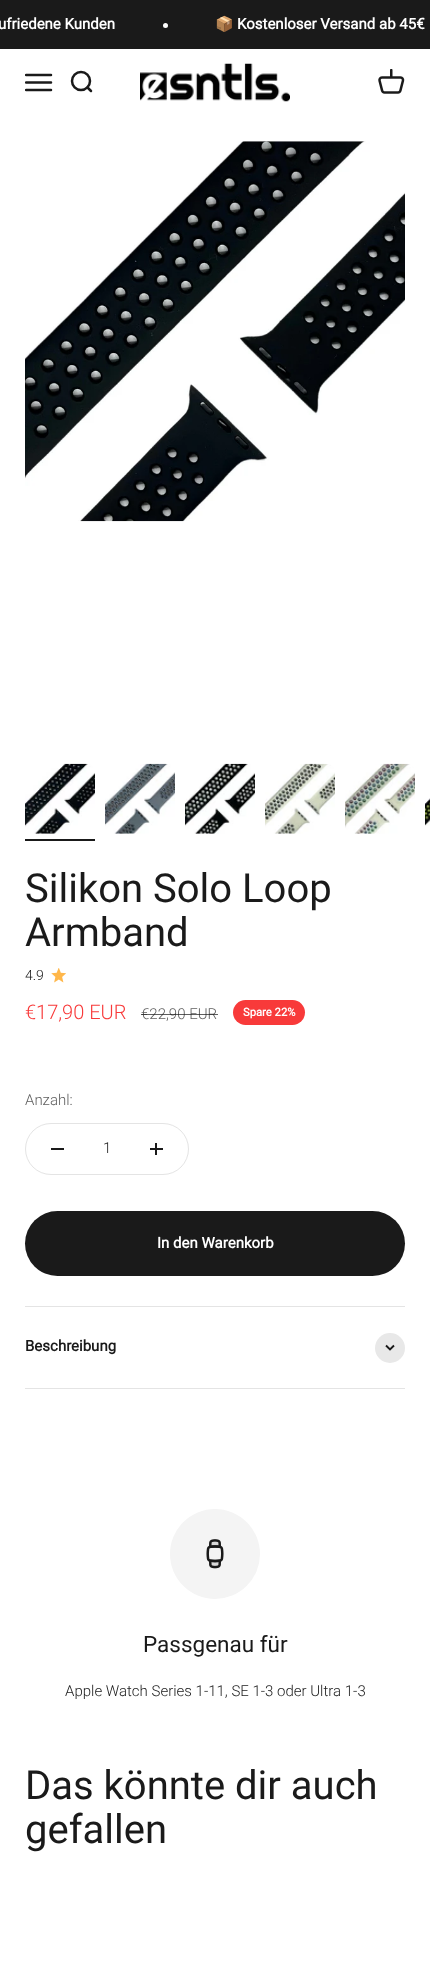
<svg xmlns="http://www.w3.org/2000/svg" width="430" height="1976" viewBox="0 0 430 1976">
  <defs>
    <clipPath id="clip1"><path d="M25 69h28v27H25z"/></clipPath>
  </defs>
  <rect width="100%" height="100%" fill="#fff"/>
  <path d="M0 0h430v49H0z" fill="#1a1a1a"/>
  <circle cx="165.5" cy="25.5" r="2.5" fill="#fff"/>
  <g clip-path="url(#clip1)">
    <path d="M26 75H51M26 82.5H51M26 90H51" fill="none" stroke="#1a1a1a" stroke-width="2.5" stroke-linecap="round"/>
  </g>
  <circle cx="81" cy="81" r="9" fill="none" stroke="#1a1a1a" stroke-width="2.5"/>
  <path d="M87.5 87.5L91 91" fill="none" stroke="#1a1a1a" stroke-width="2.5" stroke-linecap="round" stroke-linejoin="round"/>
  <image x="140" y="63" width="150" height="39" href="img/1.png"/>
  <image x="378" y="69" width="27" height="25" href="img/2.png"/>
  <image x="25" y="141" width="380" height="381" href="img/3.png"/>
  <image x="25" y="763" width="70" height="71" href="img/4.png"/>
  <path d="M25 839h70v2H25z" fill="#1a1a1a"/>
  <image x="105" y="763" width="70" height="71" href="img/5.png"/>
  <image x="185" y="763" width="70" height="71" href="img/6.png"/>
  <image x="265" y="763" width="70" height="71" href="img/7.png"/>
  <image x="345" y="763" width="70" height="71" href="img/8.png"/>
  <image x="425" y="798" width="5" height="28" href="img/9.png"/>
  <image x="51" y="968" width="15" height="15" href="img/10.png"/>
  <rect x="233" y="1000" width="72" height="25" rx="12.5" fill="#f83a3a"/>
  <rect x="25.5" y="1123.5" width="163" height="51" rx="25.5" fill="none" stroke="#e4e4e4"/>
  <path d="M51 1148h13v2H51z" fill="#1a1a1a"/>
  <path d="M155 1143h2v12H155z" fill="#1a1a1a"/>
  <path d="M150 1148h13v2H150z" fill="#1a1a1a"/>
  <rect x="25" y="1211" width="380" height="65" rx="32.5" fill="#1a1a1a"/>
  <path d="M25 1306h380v1H25z" fill="#e4e4e4"/>
  <path d="M25 1388h380v1H25z" fill="#e4e4e4"/>
  <circle cx="390" cy="1348" r="15" fill="#e8e8e8"/>
  <path d="M386 1345.5L390 1349.5L394 1345.5" fill="none" stroke="#1a1a1a" stroke-width="1.9"/>
  <circle cx="215" cy="1554" r="45" fill="#f4f4f4"/>
  <image x="206" y="1539" width="18" height="30" href="img/11.png"/>
  <text x="-2" y="29" font-family="Roboto" font-size="15" font-weight="bold" fill="#fff">ufriedene Kunden</text>
  <text x="215" y="29" font-family="Noto Color Emoji" font-size="15" font-weight="bold" fill="#fff">📦</text>
  <text x="237" y="29" font-family="Roboto" font-size="15" font-weight="bold" fill="#fff">Kostenloser Versand ab 45€</text>
  <g font-family="Roboto" font-size="40" fill="#1a1a1a">
    <text x="25" y="902">Silikon Solo Loop</text>
    <text x="25" y="946">Armband</text>
  </g>
  <text x="25" y="980" font-family="Roboto" font-size="14" font-weight="300" fill="#1a1a1a">4.9</text>
  <text x="25" y="1019" font-family="Roboto" font-size="20" font-weight="300" fill="#f83a3a">€17,90 EUR</text>
  <text x="141" y="1019" font-family="Roboto" font-size="15" font-weight="300" fill="#5f5f5f">€22,90 EUR</text>
  <path d="M141 1014h77v1H141z" fill="#1a1a1ab3"/>
  <text x="243" y="1016" font-family="Roboto" font-size="11.25" font-weight="bold" fill="#fff">Spare 22%</text>
  <text x="25" y="1105" font-family="Roboto" font-size="15" font-weight="300" fill="#5f5f5f">Anzahl:</text>
  <text x="103" y="1153" font-family="Roboto" font-size="15" font-weight="300" fill="#1a1a1a">1</text>
  <text x="157" y="1248" font-family="Roboto" font-size="15" font-weight="bold" fill="#fff">In den Warenkorb</text>
  <text x="25" y="1351" font-family="Roboto" font-size="15" font-weight="bold" fill="#1a1a1a">Beschreibung</text>
  <text x="143" y="1652" font-family="Roboto" font-size="22.5" fill="#1a1a1a">Passgenau für</text>
  <text x="65" y="1696" font-family="Roboto" font-size="15" font-weight="300" fill="#1a1a1a">Apple Watch Series 1-11, SE 1-3 oder Ultra 1-3</text>
  <g font-family="Roboto" font-size="40" fill="#1a1a1a">
    <text x="25" y="1799">Das könnte dir auch</text>
    <text x="25" y="1843">gefallen</text>
  </g>
</svg>
